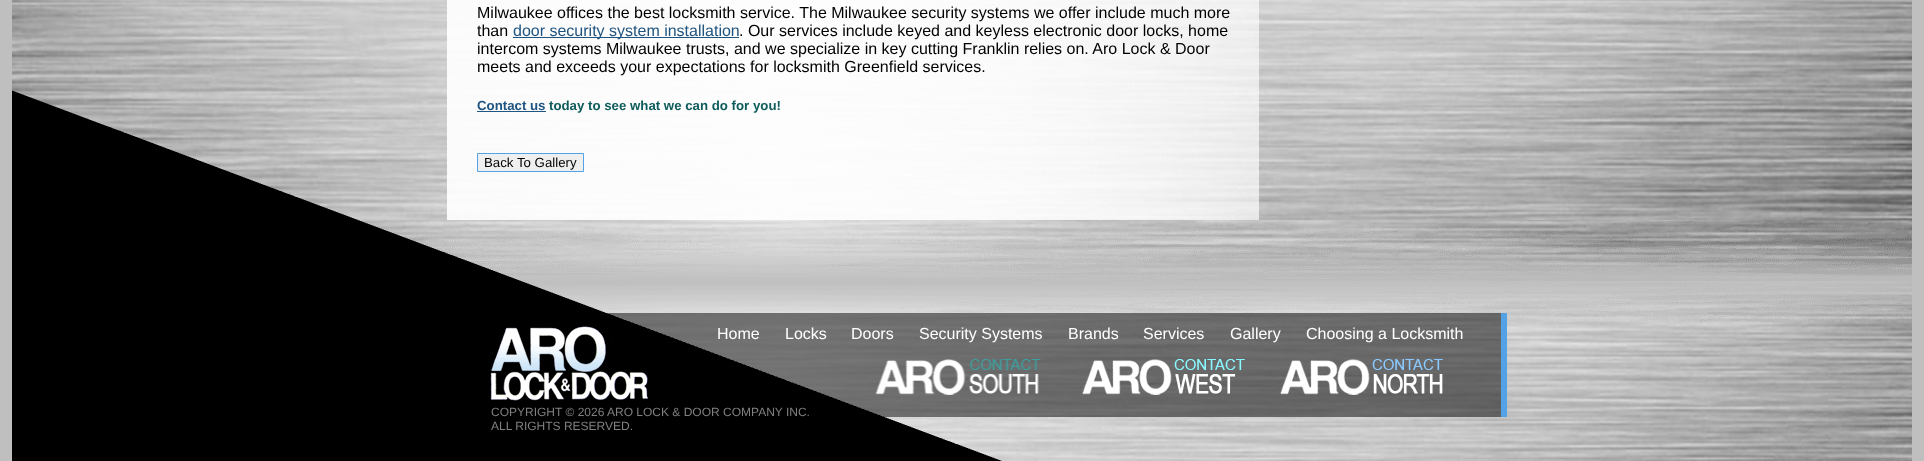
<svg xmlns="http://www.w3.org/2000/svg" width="1924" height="461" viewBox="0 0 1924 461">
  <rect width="100%" height="100%" fill="#bfbfbf"/>
  <image x="358" y="220" width="1554" height="241" href="img/1.png"/>
  <image x="12" y="0" width="1900" height="220" href="img/2.png"/>
  <image x="447" y="0" width="812" height="220" href="img/3.png"/>
  <path d="M513 37h226v1H513z" fill="#205480"/>
  <image x="12" y="90" width="1495" height="371" href="img/4.png"/>
  <path d="M477 111h69v1H477z" fill="#205480"/>
  <path d="M477.5 153.5h106v18H477.5z" fill="#efefef" stroke="#53a2e5"/>
  <image x="489" y="326" width="160" height="77" href="img/5.png"/>
  <image x="875" y="359" width="166" height="36" href="img/6.png"/>
  <image x="1082" y="359" width="163" height="36" href="img/7.png"/>
  <image x="1280" y="359" width="163" height="36" href="img/8.png"/>
  <g font-family="Liberation Sans" font-size="16" fill="#000">
    <text x="477" y="18">Milwaukee offices the best locksmith service. The Milwaukee security systems we offer include much more</text>
    <text x="477" y="36">than</text>
  </g>
  <text x="513" y="36" font-family="Liberation Sans" font-size="16" fill="#205480">door security system installation</text>
  <g font-family="Liberation Sans" font-size="16" fill="#000">
    <text x="739" y="36">. Our services include keyed and keyless electronic door locks, home</text>
    <text x="477" y="54">intercom systems Milwaukee trusts, and we specialize in key cutting Franklin relies on. Aro Lock &amp; Door</text>
    <text x="477" y="72">meets and exceeds your expectations for locksmith Greenfield services.</text>
  </g>
  <text x="477" y="110" font-family="Liberation Sans" font-size="13.25" font-weight="bold" fill="#205480">Contact us</text>
  <text x="549" y="110" font-family="Liberation Sans" font-size="13.25" font-weight="bold" fill="#0e5c5c">today to see what we can do for you!</text>
  <text x="484" y="167" font-family="Liberation Sans" font-size="13.25" fill="#000">Back To Gallery</text>
  <g font-family="Liberation Sans" font-size="16" fill="#fff">
    <text x="717" y="339">Home</text>
    <text x="785" y="339">Locks</text>
    <text x="851" y="339">Doors</text>
    <text x="919" y="339">Security Systems</text>
    <text x="1068" y="339">Brands</text>
    <text x="1143" y="339">Services</text>
    <text x="1230" y="339">Gallery</text>
    <text x="1306" y="339">Choosing a Locksmith</text>
  </g>
  <g font-family="Liberation Sans" font-size="12" fill="#808080">
    <text x="491" y="416">COPYRIGHT © 2026 ARO LOCK &amp; DOOR COMPANY INC.</text>
    <text x="491" y="430">ALL RIGHTS RESERVED.</text>
  </g>
</svg>
